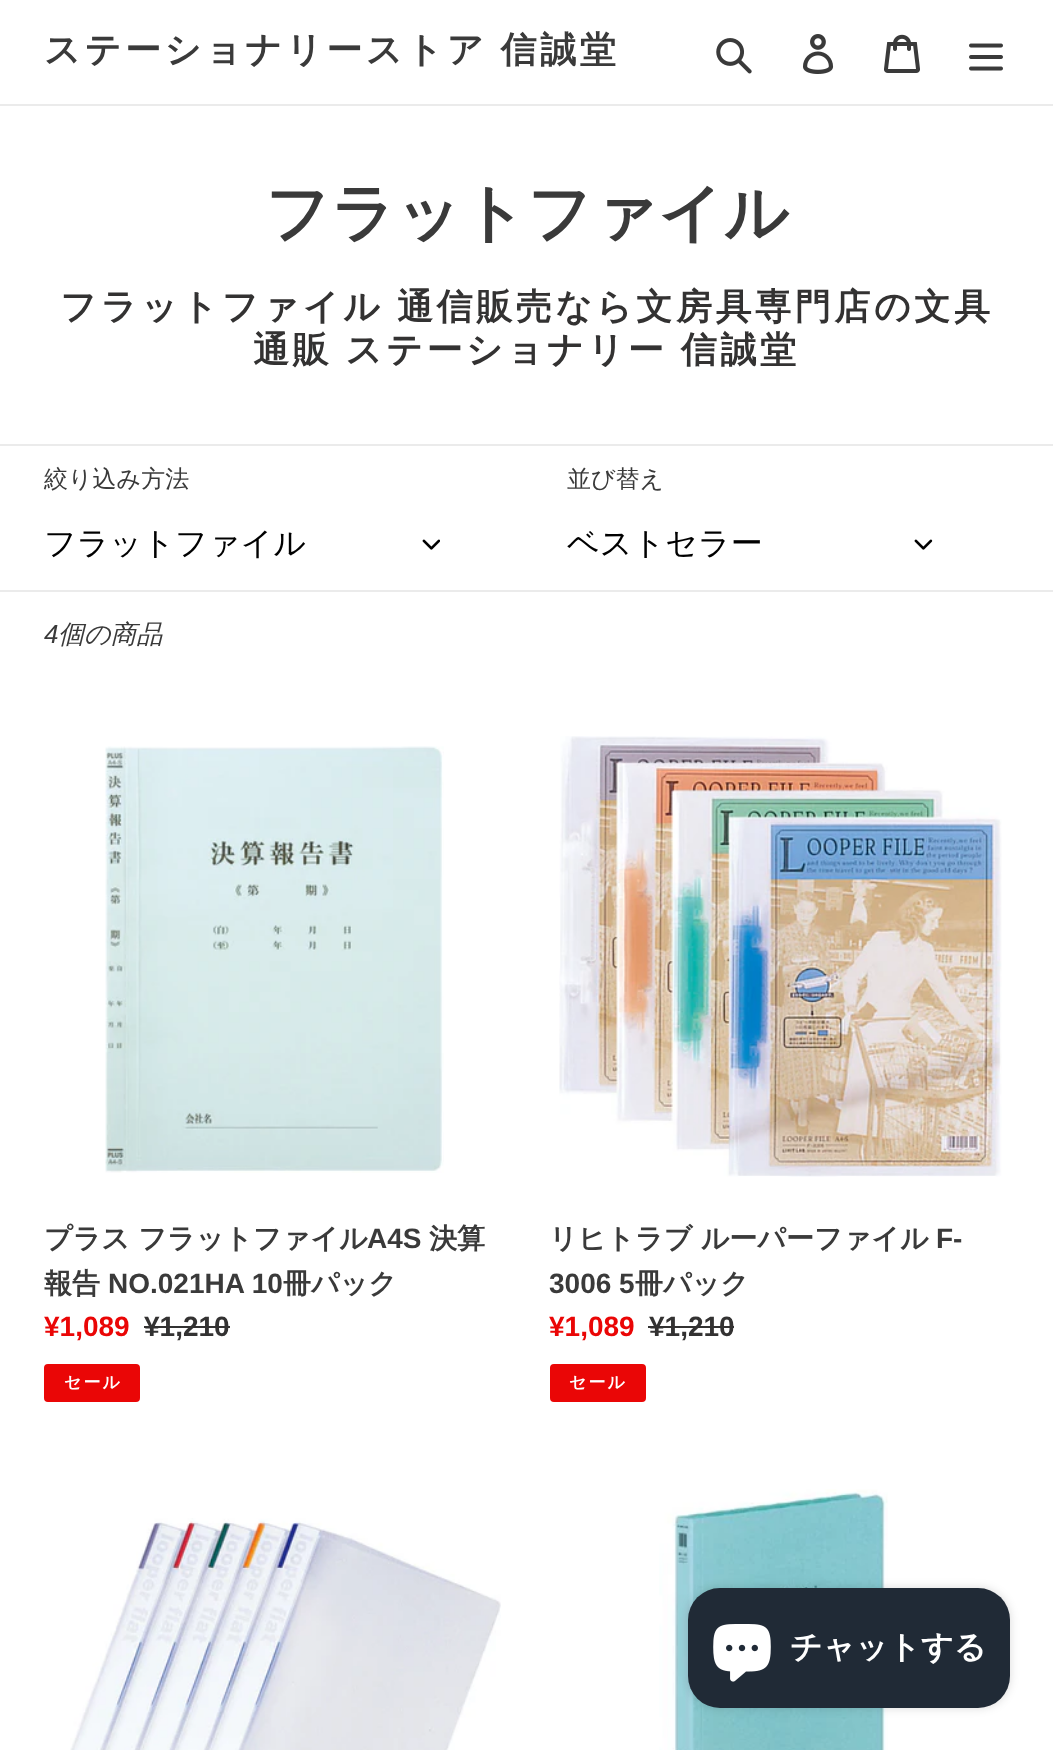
<svg xmlns="http://www.w3.org/2000/svg" width="1053" height="1750" viewBox="0 0 1053 1750">
  <rect width="100%" height="100%" fill="#fff"/>
  <path d="M0 104h1053v2H0z" fill="#ebebeb"/>
  <image x="716" y="38" width="36" height="36" href="img/1.png"/>
  <image x="803" y="34" width="31" height="40" href="img/2.png"/>
  <image x="884" y="34" width="36" height="39" href="img/3.png"/>
  <image x="969" y="43" width="34" height="28" href="img/4.png"/>
  <path d="M0 444h1053v2H0z" fill="#ebebeb"/>
  <image x="422" y="539" width="18" height="11" href="img/5.png"/>
  <image x="914" y="539" width="19" height="11" href="img/6.png"/>
  <path d="M0 590h1053v2H0z" fill="#ebebeb"/>
  <image x="105" y="746" width="339" height="427" href="img/7.png"/>
  <path d="M144 1326h86v2H144z" fill="#333232"/>
  <rect x="45" y="1365" width="94" height="36" rx="3" fill="#ea0606" stroke="#ea0606" stroke-width="2"/>
  <image x="559" y="736" width="443" height="441" href="img/8.png"/>
  <path d="M648 1326h86v2H648z" fill="#333232"/>
  <rect x="551" y="1365" width="94" height="36" rx="3" fill="#ea0606" stroke="#ea0606" stroke-width="2"/>
  <image x="70" y="1518" width="431" height="232" href="img/9.png"/>
  <image x="659" y="1489" width="229" height="261" href="img/10.png"/>
  <rect x="688" y="1588" width="322" height="120" rx="32" fill="#00000026" filter="blur(5px)"/>
  <rect x="688" y="1588" width="322" height="120" rx="32" fill="#202a36"/>
  <image x="713" y="1624" width="58" height="58" href="img/11.png"/>
  <text x="44" y="62" word-spacing="-1" font-family="WenQuanYi Zen Hei" font-size="36" font-weight="bold" letter-spacing="3.6" fill="#3a3a3a">ステーショナリーストア 信誠堂</text>
  <text x="265" y="235" font-family="WenQuanYi Zen Hei" font-size="64" font-weight="bold" fill="#3a3a3a">フラットファイル</text>
  <g font-family="WenQuanYi Zen Hei" font-size="36" font-weight="bold" letter-spacing="3.6" fill="#333232">
    <text x="60" y="319">フラットファイル</text>
    <text x="397" y="319">通信販売なら文房具専門店の文具</text>
    <text x="253" y="362" word-spacing="-1">通販 ステーショナリー 信誠堂</text>
  </g>
  <text x="44" y="487" font-family="WenQuanYi Zen Hei" font-size="24" font-weight="500" fill="#3a3a3a">絞り込み方法</text>
  <text x="44" y="554" font-family="WenQuanYi Zen Hei" font-size="32" font-weight="500" fill="#000">フラットファイル</text>
  <text x="567" y="487" font-family="WenQuanYi Zen Hei" font-size="24" font-weight="500" fill="#3a3a3a">並び替え</text>
  <text x="567" y="554" font-family="WenQuanYi Zen Hei" font-size="32" font-weight="500" fill="#000">ベストセラー</text>
  <text x="44" y="643" font-family="Liberation Sans" font-size="26" font-style="italic" fill="#3a3a3a">4</text>
  <text x="58" y="643" font-family="WenQuanYi Zen Hei" font-size="26" font-weight="500" font-style="italic" fill="#3a3a3a">個の商品</text>
  <text x="44" y="1248" font-family="WenQuanYi Zen Hei" font-size="28" font-weight="bold" fill="#3a3a3a">プラス フラットファイル</text>
  <text x="367" y="1248" font-family="Liberation Sans" font-size="28" font-weight="bold" fill="#3a3a3a">A4S</text>
  <g font-family="WenQuanYi Zen Hei" font-size="28" font-weight="bold" fill="#3a3a3a">
    <text x="429" y="1248">決算</text>
    <text x="44" y="1293">報告</text>
  </g>
  <text x="108" y="1293" font-family="Liberation Sans" font-size="28" font-weight="bold" fill="#3a3a3a">NO.021HA 10</text>
  <text x="283" y="1293" font-family="WenQuanYi Zen Hei" font-size="28" font-weight="bold" fill="#3a3a3a">冊パック</text>
  <text x="44" y="1336" font-family="Liberation Sans" font-size="28" font-weight="bold" fill="#ea0606">¥1,089</text>
  <text x="144" y="1336" font-family="Liberation Sans" font-size="28" font-weight="bold" fill="#333232">¥1,210</text>
  <text x="64" y="1388" font-family="WenQuanYi Zen Hei" font-size="17" font-weight="bold" letter-spacing="2" fill="#fff">セール</text>
  <text x="549" y="1248" font-family="WenQuanYi Zen Hei" font-size="28" font-weight="bold" fill="#3a3a3a">リヒトラブ ルーパーファイル</text>
  <g font-family="Liberation Sans" font-size="28" font-weight="bold" fill="#3a3a3a">
    <text x="936" y="1248">F-</text>
    <text x="549" y="1293">3006 5</text>
  </g>
  <text x="635" y="1293" font-family="WenQuanYi Zen Hei" font-size="28" font-weight="bold" fill="#3a3a3a">冊パック</text>
  <text x="549" y="1336" font-family="Liberation Sans" font-size="28" font-weight="bold" fill="#ea0606">¥1,089</text>
  <text x="649" y="1336" font-family="Liberation Sans" font-size="28" font-weight="bold" fill="#333232">¥1,210</text>
  <text x="569" y="1388" font-family="WenQuanYi Zen Hei" font-size="17" font-weight="bold" letter-spacing="2" fill="#fff">セール</text>
  <text x="790" y="1658" font-family="WenQuanYi Zen Hei" font-size="32" font-weight="bold" fill="#fff">チャットする</text>
</svg>
